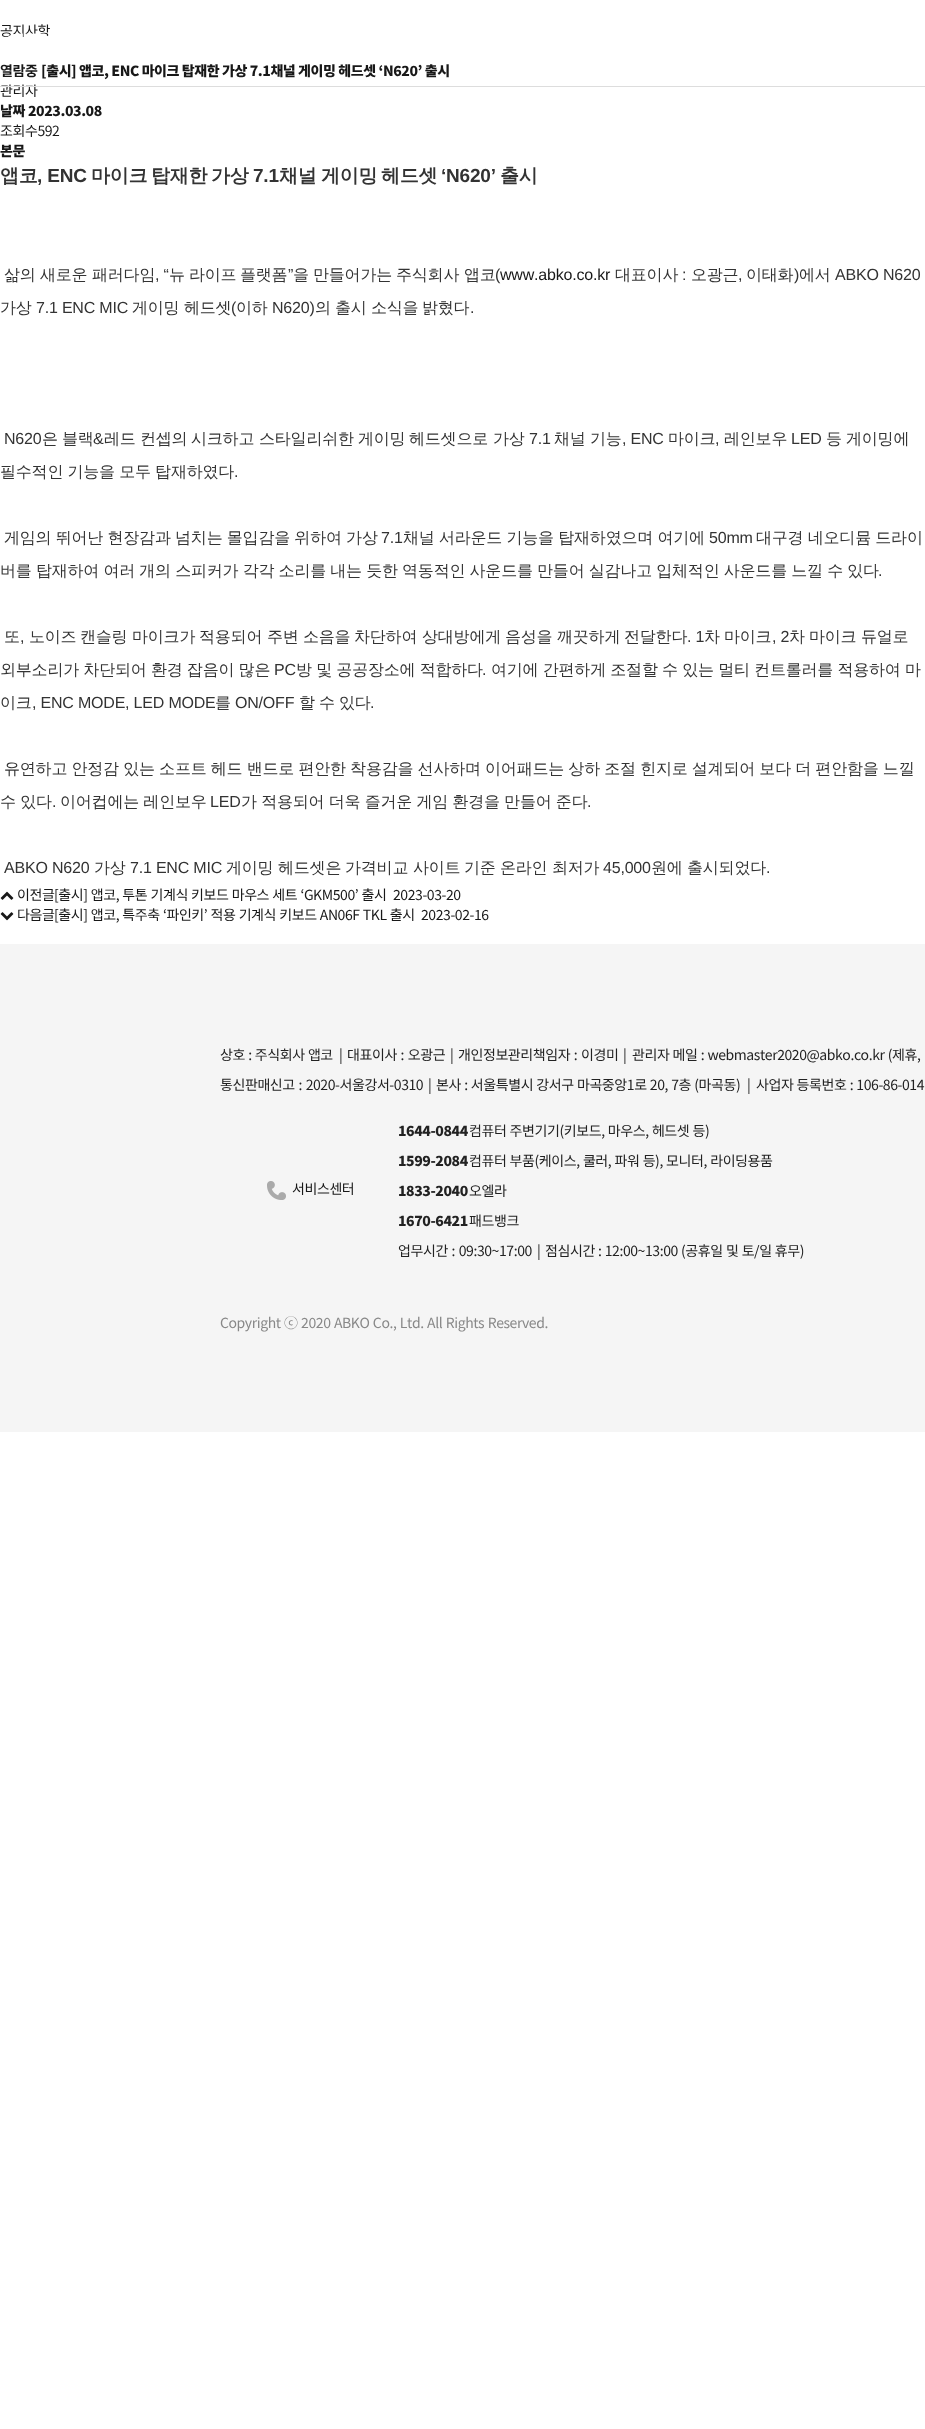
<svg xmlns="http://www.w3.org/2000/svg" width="925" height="2429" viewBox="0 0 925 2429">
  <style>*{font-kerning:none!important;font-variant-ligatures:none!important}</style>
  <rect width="100%" height="100%" fill="#fff"/>
  <image x="0" y="891" width="14" height="9" href="img/1.png"/>
  <image x="0" y="912" width="14" height="9" href="img/2.png"/>
  <path d="M0 944h925v488H0z" fill="#f5f5f5"/>
  <image x="267" y="1181" width="19" height="19" href="img/4.png"/>
  <text x="0" y="36" font-family="Noto Sans KR" font-size="14" letter-spacing="-0.42" fill="#181818">공지사항</text>
  <text x="0" y="76" font-family="Noto Sans KR" font-size="14" font-weight="bold" letter-spacing="-0.42" fill="#181818">열람중</text>
  <text x="41" y="76" font-family="Noto Sans KR" font-size="14" font-weight="900" letter-spacing="-0.42" fill="#181818">[출시] 앱코, ENC 마이크 탑재한 가상 7.1채널 게이밍 헤드셋 ‘N620’ 출시</text>
  <text x="0" y="96" font-family="Noto Sans KR" font-size="14" letter-spacing="-0.42" fill="#181818">관리자</text>
  <g font-family="Noto Sans KR" font-size="14" font-weight="900" letter-spacing="-0.42" fill="#181818">
    <text x="0" y="116">날짜</text>
    <text x="28" y="116">2023.03.08</text>
  </g>
  <text x="0" y="136" font-family="Noto Sans KR" font-size="14" letter-spacing="-0.42" fill="#181818">조회수592</text>
  <text x="0" y="156" font-family="Noto Sans KR" font-size="14" font-weight="900" letter-spacing="-0.42" fill="#181818">본문</text>
  <text x="0" y="182" font-family="WenQuanYi Zen Hei" font-size="19" font-weight="bold" letter-spacing="-0.2" fill="#333">앱코</text>
  <text x="37" y="182" font-family="Liberation Sans" font-size="19" font-weight="bold" letter-spacing="-0.2" fill="#333">, ENC</text>
  <g font-family="WenQuanYi Zen Hei" font-size="19" font-weight="bold" letter-spacing="-0.2" fill="#333">
    <text x="91" y="182">마이크</text>
    <text x="151" y="182">탑재한</text>
    <text x="211" y="182">가상</text>
  </g>
  <text x="253" y="182" font-family="Liberation Sans" font-size="19" font-weight="bold" letter-spacing="-0.2" fill="#333">7.1</text>
  <g font-family="WenQuanYi Zen Hei" font-size="19" font-weight="bold" letter-spacing="-0.2" fill="#333">
    <text x="279" y="182">채널</text>
    <text x="321" y="182">게이밍</text>
    <text x="381" y="182">헤드셋</text>
  </g>
  <text x="441" y="182" font-family="Liberation Sans" font-size="19" font-weight="bold" letter-spacing="-0.2" fill="#333">‘N620’</text>
  <text x="500" y="182" font-family="WenQuanYi Zen Hei" font-size="19" font-weight="bold" letter-spacing="-0.2" fill="#333">출시</text>
  <g font-family="WenQuanYi Zen Hei" font-size="16" font-weight="500" letter-spacing="-0.2" fill="#333">
    <text x="4" y="280">삶의</text>
    <text x="40" y="280">새로운</text>
    <text x="92" y="280">패러다임</text>
  </g>
  <text x="155" y="280" font-family="Liberation Sans" font-size="16" letter-spacing="-0.2" fill="#333">, “</text>
  <g font-family="WenQuanYi Zen Hei" font-size="16" font-weight="500" letter-spacing="-0.2" fill="#333">
    <text x="169" y="280">뉴</text>
    <text x="189" y="280">라이프</text>
    <text x="240" y="280">플랫폼</text>
  </g>
  <text x="288" y="280" font-family="Liberation Sans" font-size="16" letter-spacing="-0.2" fill="#333">”</text>
  <g font-family="WenQuanYi Zen Hei" font-size="16" font-weight="500" letter-spacing="-0.2" fill="#333">
    <text x="293" y="280">을</text>
    <text x="313" y="280">만들어가는</text>
    <text x="396" y="280">주식회사</text>
    <text x="464" y="280">앱코</text>
  </g>
  <text x="495" y="280" font-family="Liberation Sans" font-size="16" letter-spacing="-0.2" fill="#333">(</text>
  <text x="500" y="280" font-family="Liberation Sans" font-size="16" letter-spacing="-0.2" fill="#181818">www.abko.co.kr</text>
  <text x="615" y="280" font-family="WenQuanYi Zen Hei" font-size="16" font-weight="500" letter-spacing="-0.2" fill="#333">대표이사</text>
  <text x="682" y="280" font-family="Liberation Sans" font-size="16" letter-spacing="-0.2" fill="#333">:</text>
  <g font-family="WenQuanYi Zen Hei" font-size="16" font-weight="500" letter-spacing="-0.2" fill="#333">
    <text x="691" y="280">오광근</text>
    <text x="746" y="280">이태화</text>
  </g>
  <text x="794" y="280" font-family="Liberation Sans" font-size="16" letter-spacing="-0.2" fill="#333">)</text>
  <text x="799" y="280" font-family="WenQuanYi Zen Hei" font-size="16" font-weight="500" letter-spacing="-0.2" fill="#333">에서</text>
  <g font-family="Liberation Sans" font-size="16" letter-spacing="-0.2" fill="#333">
    <text x="835" y="280">ABKO N620</text>
    <text x="738" y="280">,</text>
  </g>
  <text x="0" y="313" font-family="WenQuanYi Zen Hei" font-size="16" font-weight="500" letter-spacing="-0.2" fill="#333">가상</text>
  <text x="36" y="313" font-family="Liberation Sans" font-size="16" letter-spacing="-0.2" fill="#333">7.1 ENC MIC</text>
  <g font-family="WenQuanYi Zen Hei" font-size="16" font-weight="500" letter-spacing="-0.2" fill="#333">
    <text x="132" y="313">게이밍</text>
    <text x="184" y="313">헤드셋</text>
  </g>
  <text x="231" y="313" font-family="Liberation Sans" font-size="16" letter-spacing="-0.2" fill="#333">(</text>
  <text x="236" y="313" font-family="WenQuanYi Zen Hei" font-size="16" font-weight="500" letter-spacing="-0.2" fill="#333">이하</text>
  <text x="272" y="313" font-family="Liberation Sans" font-size="16" letter-spacing="-0.2" fill="#333">N620)</text>
  <g font-family="WenQuanYi Zen Hei" font-size="16" font-weight="500" letter-spacing="-0.2" fill="#333">
    <text x="315" y="313">의</text>
    <text x="335" y="313">출시</text>
    <text x="371" y="313">소식을</text>
    <text x="422" y="313">밝혔다</text>
  </g>
  <g font-family="Liberation Sans" font-size="16" letter-spacing="-0.2" fill="#333">
    <text x="470" y="313">.</text>
    <text x="4" y="444">N620</text>
  </g>
  <g font-family="WenQuanYi Zen Hei" font-size="16" font-weight="500" letter-spacing="-0.2" fill="#333">
    <text x="42" y="444">은</text>
    <text x="62" y="444">블랙</text>
  </g>
  <text x="93" y="444" font-family="Liberation Sans" font-size="16" letter-spacing="-0.2" fill="#333">&amp;</text>
  <g font-family="WenQuanYi Zen Hei" font-size="16" font-weight="500" letter-spacing="-0.2" fill="#333">
    <text x="104" y="444">레드</text>
    <text x="140" y="444">컨셉의</text>
    <text x="191" y="444">시크하고</text>
    <text x="259" y="444">스타일리쉬한</text>
    <text x="358" y="444">게이밍</text>
    <text x="409" y="444">헤드셋으로</text>
    <text x="493" y="444">가상</text>
  </g>
  <text x="529" y="444" font-family="Liberation Sans" font-size="16" letter-spacing="-0.2" fill="#333">7.1</text>
  <g font-family="WenQuanYi Zen Hei" font-size="16" font-weight="500" letter-spacing="-0.2" fill="#333">
    <text x="554" y="444">채널</text>
    <text x="590" y="444">기능</text>
  </g>
  <text x="622" y="444" font-family="Liberation Sans" font-size="16" letter-spacing="-0.2" fill="#333">, ENC</text>
  <g font-family="WenQuanYi Zen Hei" font-size="16" font-weight="500" letter-spacing="-0.2" fill="#333">
    <text x="668" y="444">마이크</text>
    <text x="724" y="444">레인보우</text>
  </g>
  <text x="791" y="444" font-family="Liberation Sans" font-size="16" letter-spacing="-0.2" fill="#333">LED</text>
  <g font-family="WenQuanYi Zen Hei" font-size="16" font-weight="500" letter-spacing="-0.2" fill="#333">
    <text x="826" y="444">등</text>
    <text x="846" y="444">게이밍에</text>
  </g>
  <text x="715" y="444" font-family="Liberation Sans" font-size="16" letter-spacing="-0.2" fill="#333">,</text>
  <text x="0" y="477" word-spacing="-0.3" font-family="WenQuanYi Zen Hei" font-size="16" font-weight="500" letter-spacing="-0.2" fill="#333">필수적인 기능을 모두 탑재하였다</text>
  <text x="234" y="477" font-family="Liberation Sans" font-size="16" letter-spacing="-0.2" fill="#333">.</text>
  <text x="4" y="543" word-spacing="-0.25" font-family="WenQuanYi Zen Hei" font-size="16" font-weight="500" letter-spacing="-0.2" fill="#333">게임의 뛰어난 현장감과 넘치는 몰입감을 위하여 가상</text>
  <text x="381" y="543" font-family="Liberation Sans" font-size="16" letter-spacing="-0.2" fill="#333">7.1</text>
  <text x="403" y="543" word-spacing="-0.25" font-family="WenQuanYi Zen Hei" font-size="16" font-weight="500" letter-spacing="-0.2" fill="#333">채널 서라운드 기능을 탑재하였으며 여기에</text>
  <text x="709" y="543" font-family="Liberation Sans" font-size="16" letter-spacing="-0.2" fill="#333">50mm</text>
  <g font-family="WenQuanYi Zen Hei" font-size="16" font-weight="500" letter-spacing="-0.2" fill="#333">
    <text x="756" y="543" word-spacing="-0.25">대구경 네오디뮴 드라이</text>
    <text x="0" y="576" word-spacing="-0.3">버를 탑재하여 여러 개의 스피커가 각각 소리를 내는 듯한 역동적인 사운드를 만들어 실감나고 입체적인 사운드를 느낄 수 있다</text>
  </g>
  <text x="878" y="576" font-family="Liberation Sans" font-size="16" letter-spacing="-0.2" fill="#333">.</text>
  <g font-family="WenQuanYi Zen Hei" font-size="16" font-weight="500" letter-spacing="-0.2" fill="#333">
    <text x="4" y="642">또</text>
    <text x="29" y="642">노이즈</text>
    <text x="80" y="642">캔슬링</text>
    <text x="132" y="642">마이크가</text>
    <text x="199" y="642">적용되어</text>
    <text x="267" y="642">주변</text>
    <text x="303" y="642">소음을</text>
    <text x="354" y="642">차단하여</text>
    <text x="422" y="642">상대방에게</text>
    <text x="505" y="642">음성을</text>
    <text x="557" y="642">깨끗하게</text>
    <text x="624" y="642">전달한다</text>
  </g>
  <text x="687" y="642" font-family="Liberation Sans" font-size="16" letter-spacing="-0.2" fill="#333">. 1</text>
  <g font-family="WenQuanYi Zen Hei" font-size="16" font-weight="500" letter-spacing="-0.2" fill="#333">
    <text x="704" y="642">차</text>
    <text x="724" y="642">마이크</text>
  </g>
  <text x="772" y="642" font-family="Liberation Sans" font-size="16" letter-spacing="-0.2" fill="#333">, 2</text>
  <g font-family="WenQuanYi Zen Hei" font-size="16" font-weight="500" letter-spacing="-0.2" fill="#333">
    <text x="789" y="642">차</text>
    <text x="809" y="642">마이크</text>
    <text x="861" y="642">듀얼로</text>
  </g>
  <text x="20" y="642" font-family="Liberation Sans" font-size="16" letter-spacing="-0.2" fill="#333">,</text>
  <text x="0" y="675" word-spacing="-0.25" font-family="WenQuanYi Zen Hei" font-size="16" font-weight="500" letter-spacing="-0.2" fill="#333">외부소리가 차단되어 환경 잡음이 많은</text>
  <text x="274" y="675" font-family="Liberation Sans" font-size="16" letter-spacing="-0.2" fill="#333">PC</text>
  <text x="296" y="675" word-spacing="-0.25" font-family="WenQuanYi Zen Hei" font-size="16" font-weight="500" letter-spacing="-0.2" fill="#333">방 및 공공장소에 적합하다</text>
  <text x="482" y="675" font-family="Liberation Sans" font-size="16" letter-spacing="-0.2" fill="#333">.</text>
  <g font-family="WenQuanYi Zen Hei" font-size="16" font-weight="500" letter-spacing="-0.2" fill="#333">
    <text x="491" y="675" word-spacing="-0.25">여기에 간편하게 조절할 수 있는 멀티 컨트롤러를 적용하여 마</text>
    <text x="0" y="708">이크</text>
  </g>
  <text x="32" y="708" font-family="Liberation Sans" font-size="16" letter-spacing="-0.2" fill="#333">, ENC MODE, LED MODE</text>
  <text x="215" y="708" font-family="WenQuanYi Zen Hei" font-size="16" font-weight="500" letter-spacing="-0.2" fill="#333">를</text>
  <text x="235" y="708" font-family="Liberation Sans" font-size="16" letter-spacing="-0.2" fill="#333">ON/OFF</text>
  <g font-family="WenQuanYi Zen Hei" font-size="16" font-weight="500" letter-spacing="-0.2" fill="#333">
    <text x="299" y="708">할</text>
    <text x="319" y="708">수</text>
    <text x="339" y="708">있다</text>
  </g>
  <text x="370" y="708" font-family="Liberation Sans" font-size="16" letter-spacing="-0.2" fill="#333">.</text>
  <g font-family="WenQuanYi Zen Hei" font-size="16" font-weight="500" letter-spacing="-0.2" fill="#333">
    <text x="4" y="774" word-spacing="-0.3">유연하고 안정감 있는 소프트 헤드 밴드로 편안한 착용감을 선사하며 이어패드는 상하 조절 힌지로 설계되어 보다 더 편안함을 느낄</text>
    <text x="0" y="807" word-spacing="-0.25">수 있다</text>
  </g>
  <text x="52" y="807" font-family="Liberation Sans" font-size="16" letter-spacing="-0.2" fill="#333">.</text>
  <text x="60" y="807" word-spacing="-0.25" font-family="WenQuanYi Zen Hei" font-size="16" font-weight="500" letter-spacing="-0.2" fill="#333">이어컵에는 레인보우</text>
  <text x="210" y="807" font-family="Liberation Sans" font-size="16" letter-spacing="-0.2" fill="#333">LED</text>
  <text x="241" y="807" word-spacing="-0.25" font-family="WenQuanYi Zen Hei" font-size="16" font-weight="500" letter-spacing="-0.2" fill="#333">가 적용되어 더욱 즐거운 게임 환경을 만들어 준다</text>
  <g font-family="Liberation Sans" font-size="16" letter-spacing="-0.2" fill="#333">
    <text x="587" y="807">.</text>
    <text x="4" y="873">ABKO N620</text>
  </g>
  <text x="94" y="873" font-family="WenQuanYi Zen Hei" font-size="16" font-weight="500" letter-spacing="-0.2" fill="#333">가상</text>
  <text x="130" y="873" font-family="Liberation Sans" font-size="16" letter-spacing="-0.2" fill="#333">7.1 ENC MIC</text>
  <g font-family="WenQuanYi Zen Hei" font-size="16" font-weight="500" letter-spacing="-0.2" fill="#333">
    <text x="226" y="873">게이밍</text>
    <text x="278" y="873">헤드셋은</text>
    <text x="345" y="873">가격비교</text>
    <text x="413" y="873">사이트</text>
    <text x="464" y="873">기준</text>
    <text x="500" y="873">온라인</text>
    <text x="552" y="873">최저가</text>
  </g>
  <text x="603" y="873" font-family="Liberation Sans" font-size="16" letter-spacing="-0.2" fill="#333">45,000</text>
  <g font-family="WenQuanYi Zen Hei" font-size="16" font-weight="500" letter-spacing="-0.2" fill="#333">
    <text x="651" y="873">원에</text>
    <text x="687" y="873">출시되었다</text>
  </g>
  <text x="766" y="873" font-family="Liberation Sans" font-size="16" letter-spacing="-0.2" fill="#333">.</text>
  <g font-family="Noto Sans KR" font-size="14" letter-spacing="-0.42" fill="#181818">
    <text x="17" y="900">이전글</text>
    <text x="54" y="900" word-spacing="0.5">[출시] 앱코, 투톤 기계식 키보드 마우스 세트 ‘GKM500’ 출시</text>
    <text x="393" y="900">2023-03-20</text>
    <text x="17" y="920">다음글</text>
    <text x="54" y="920" word-spacing="0.5">[출시] 앱코, 특주축 ‘파인키’ 적용 기계식 키보드 AN06F TKL 출시</text>
    <text x="421" y="920">2023-02-16</text>
  </g>
  <image x="0" y="33" width="48" height="24" href="img/3.png"/>
  <path d="M0 86h925v1H0z" fill="#ddd"/>
  <g font-family="Noto Sans KR" font-size="14" letter-spacing="-0.42" fill="#222">
    <text x="220" y="1060" word-spacing="0.5">상호 : 주식회사 앱코</text>
    <text x="339" y="1060">|</text>
    <text x="347" y="1060" word-spacing="1">대표이사 : 오광근</text>
    <text x="450" y="1060">|</text>
    <text x="458" y="1060" word-spacing="1">개인정보관리책임자 : 이경미</text>
    <text x="623" y="1060">|</text>
    <text x="632" y="1060" word-spacing="0.5">관리자 메일 : webmaster2020@abko.co.kr (제휴,</text>
    <text x="220" y="1090" word-spacing="1">통신판매신고 : 2020-서울강서-0310</text>
    <text x="428" y="1090">|</text>
    <text x="436" y="1090" word-spacing="0.5">본사 : 서울특별시 강서구 마곡중앙1로 20, 7층 (마곡동)</text>
    <text x="747" y="1090">|</text>
    <text x="756" y="1090" word-spacing="0.5">사업자 등록번호 : 106-86-014</text>
  </g>
  <text x="292" y="1194" font-family="Noto Sans KR" font-size="14" letter-spacing="-0.42" fill="#181818">서비스센터</text>
  <text x="398" y="1136" font-family="Noto Sans KR" font-size="14" font-weight="900" letter-spacing="-0.42" fill="#222">1644-0844</text>
  <text x="469" y="1136" word-spacing="0.5" font-family="Noto Sans KR" font-size="14" letter-spacing="-0.42" fill="#222">컴퓨터 주변기기(키보드, 마우스, 헤드셋 등)</text>
  <text x="398" y="1166" font-family="Noto Sans KR" font-size="14" font-weight="900" letter-spacing="-0.42" fill="#222">1599-2084</text>
  <text x="469" y="1166" word-spacing="0.5" font-family="Noto Sans KR" font-size="14" letter-spacing="-0.42" fill="#222">컴퓨터 부품(케이스, 쿨러, 파워 등), 모니터, 라이딩용품</text>
  <text x="398" y="1196" font-family="Noto Sans KR" font-size="14" font-weight="900" letter-spacing="-0.42" fill="#222">1833-2040</text>
  <text x="469" y="1196" font-family="Noto Sans KR" font-size="14" letter-spacing="-0.42" fill="#222">오엘라</text>
  <text x="398" y="1226" font-family="Noto Sans KR" font-size="14" font-weight="900" letter-spacing="-0.42" fill="#222">1670-6421</text>
  <g font-family="Noto Sans KR" font-size="14" letter-spacing="-0.42" fill="#222">
    <text x="469" y="1226">패드뱅크</text>
    <text x="398" y="1256" word-spacing="1">업무시간 : 09:30~17:00</text>
    <text x="537" y="1256">|</text>
    <text x="545" y="1256" word-spacing="0.5">점심시간 : 12:00~13:00 (공휴일 및 토/일 휴무)</text>
  </g>
  <text x="220" y="1328" word-spacing="0.75" font-family="Noto Sans KR" font-size="14" letter-spacing="-0.42" fill="#888">Copyright ⓒ 2020 ABKO Co., Ltd. All Rights Reserved.</text>
</svg>
